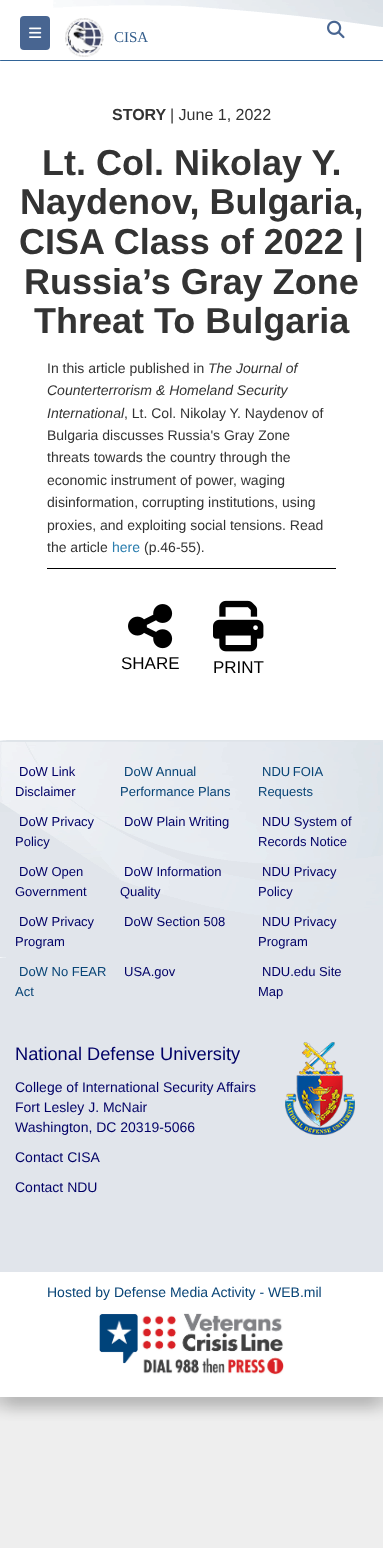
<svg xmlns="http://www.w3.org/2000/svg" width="383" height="1548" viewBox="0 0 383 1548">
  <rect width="100%" height="100%" fill="#eee"/>
  <path d="M-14 3h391v1405H-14z" fill="#0000001f" filter="blur(7px)"/>
  <path d="M6 3h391v1405H6z" fill="#0000001f" filter="blur(7px)"/>
  <path d="M0 0h383v740H0z" fill="#fff"/>
  <image x="53" y="0" width="330" height="27" href="img/1.png"/>
  <rect x="20" y="16" width="30" height="34" rx="4" fill="#486591"/>
  <image x="29" y="27" width="13" height="11" href="img/2.png"/>
  <image x="65" y="18" width="39" height="39" href="img/3.png"/>
  <image x="327" y="20" width="18" height="19" href="img/4.png"/>
  <rect y="60" width="383" height="1" rx="0.5" fill="#326497"/>
  <path d="M47 568h289v1H47z" fill="#000"/>
  <image x="128" y="604" width="45" height="45" href="img/5.png"/>
  <image x="213" y="600" width="51" height="52" href="img/6.png"/>
  <path d="M0 958h383v314H0z" fill="#e1e5eb"/>
  <image x="0" y="740" width="383" height="218" href="img/7.png"/>
  <image x="285" y="1042" width="70" height="93" href="img/8.png"/>
  <path d="M0 1272h383v125H0z" fill="#fff"/>
  <image x="99" y="1313" width="185" height="62" href="img/9.png"/>
  <text x="114" y="42" font-family="Liberation Serif" font-size="15" fill="#335d8b">CISA</text>
  <text x="112" y="120" font-family="Liberation Sans" font-size="16" font-weight="bold" fill="#333">STORY</text>
  <text x="170" y="120" font-family="Liberation Sans" font-size="16" fill="#333">| June 1, 2022</text>
  <g font-family="Liberation Sans" font-size="36" font-weight="bold" fill="#333">
    <text x="42" y="175">Lt. Col. Nikolay Y.</text>
    <text x="20" y="214">Naydenov, Bulgaria,</text>
    <text x="19" y="254">CISA Class of 2022 |</text>
    <text x="24" y="294">Russia’s Gray Zone</text>
    <text x="34" y="333">Threat To Bulgaria</text>
  </g>
  <text x="47" y="373" font-family="Liberation Sans" font-size="14" fill="#333">In this article published in</text>
  <g font-family="Liberation Sans" font-size="14" font-style="italic" fill="#333">
    <text x="208" y="373">The Journal of</text>
    <text x="47" y="395">Counterterrorism &amp; Homeland Security</text>
    <text x="47" y="418">International</text>
  </g>
  <g font-family="Liberation Sans" font-size="14" fill="#333">
    <text x="124" y="418">, Lt. Col. Nikolay Y. Naydenov of</text>
    <text x="47" y="440">Bulgaria discusses Russia's Gray Zone</text>
    <text x="47" y="462">threats towards the country through the</text>
    <text x="47" y="485">economic instrument of power, waging</text>
    <text x="47" y="507">disinformation, corrupting institutions, using</text>
    <text x="47" y="530">proxies, and exploiting social tensions. Read</text>
    <text x="47" y="552">the article</text>
  </g>
  <text x="112" y="552" font-family="Liberation Sans" font-size="14" fill="#2a7dae">here</text>
  <text x="144" y="552" font-family="Liberation Sans" font-size="14" fill="#333">(p.46-55).</text>
  <g font-family="Liberation Sans" font-size="17" fill="#000">
    <text x="121" y="669">SHARE</text>
    <text x="213" y="673">PRINT</text>
  </g>
  <g font-family="Liberation Sans" font-size="13" fill="#006">
    <text x="19" y="776">DoW Link</text>
    <text x="15" y="796">Disclaimer</text>
  </g>
  <g font-family="Liberation Sans" font-size="13" fill="#084476">
    <text x="124" y="776">DoW Annual</text>
    <text x="120" y="796">Performance Plans</text>
    <text x="262" y="776" word-spacing="-1">NDU FOIA</text>
    <text x="258" y="796">Requests</text>
  </g>
  <g font-family="Liberation Sans" font-size="13" fill="#006">
    <text x="19" y="826">DoW Privacy</text>
    <text x="15" y="846">Policy</text>
    <text x="124" y="826">DoW Plain Writing</text>
    <text x="262" y="826">NDU System of</text>
    <text x="258" y="846">Records Notice</text>
    <text x="19" y="876">DoW Open</text>
    <text x="15" y="896">Government</text>
    <text x="124" y="876">DoW Information</text>
    <text x="120" y="896">Quality</text>
    <text x="262" y="876">NDU Privacy</text>
    <text x="258" y="896">Policy</text>
    <text x="19" y="926">DoW Privacy</text>
    <text x="15" y="946">Program</text>
    <text x="124" y="926">DoW Section 508</text>
    <text x="262" y="926">NDU Privacy</text>
    <text x="258" y="946">Program</text>
  </g>
  <g font-family="Liberation Sans" font-size="13" fill="#084476">
    <text x="19" y="976">DoW No FEAR</text>
    <text x="15" y="996">Act</text>
  </g>
  <g font-family="Liberation Sans" font-size="13" fill="#006">
    <text x="124" y="976">USA.gov</text>
    <text x="262" y="976">NDU.edu Site</text>
    <text x="258" y="996">Map</text>
  </g>
  <text x="15" y="1060" font-family="Liberation Sans" font-size="18.25" fill="#006">National Defense University</text>
  <g font-family="Liberation Sans" font-size="14" fill="#006">
    <text x="15" y="1092">College of International Security Affairs</text>
    <text x="15" y="1112">Fort Lesley J. McNair</text>
    <text x="15" y="1132">Washington, DC 20319-5066</text>
    <text x="15" y="1162">Contact CISA</text>
    <text x="15" y="1192">Contact NDU</text>
  </g>
  <text x="47" y="1297" font-family="Liberation Sans" font-size="14" fill="#084476">Hosted by Defense Media Activity - WEB.mil</text>
</svg>
